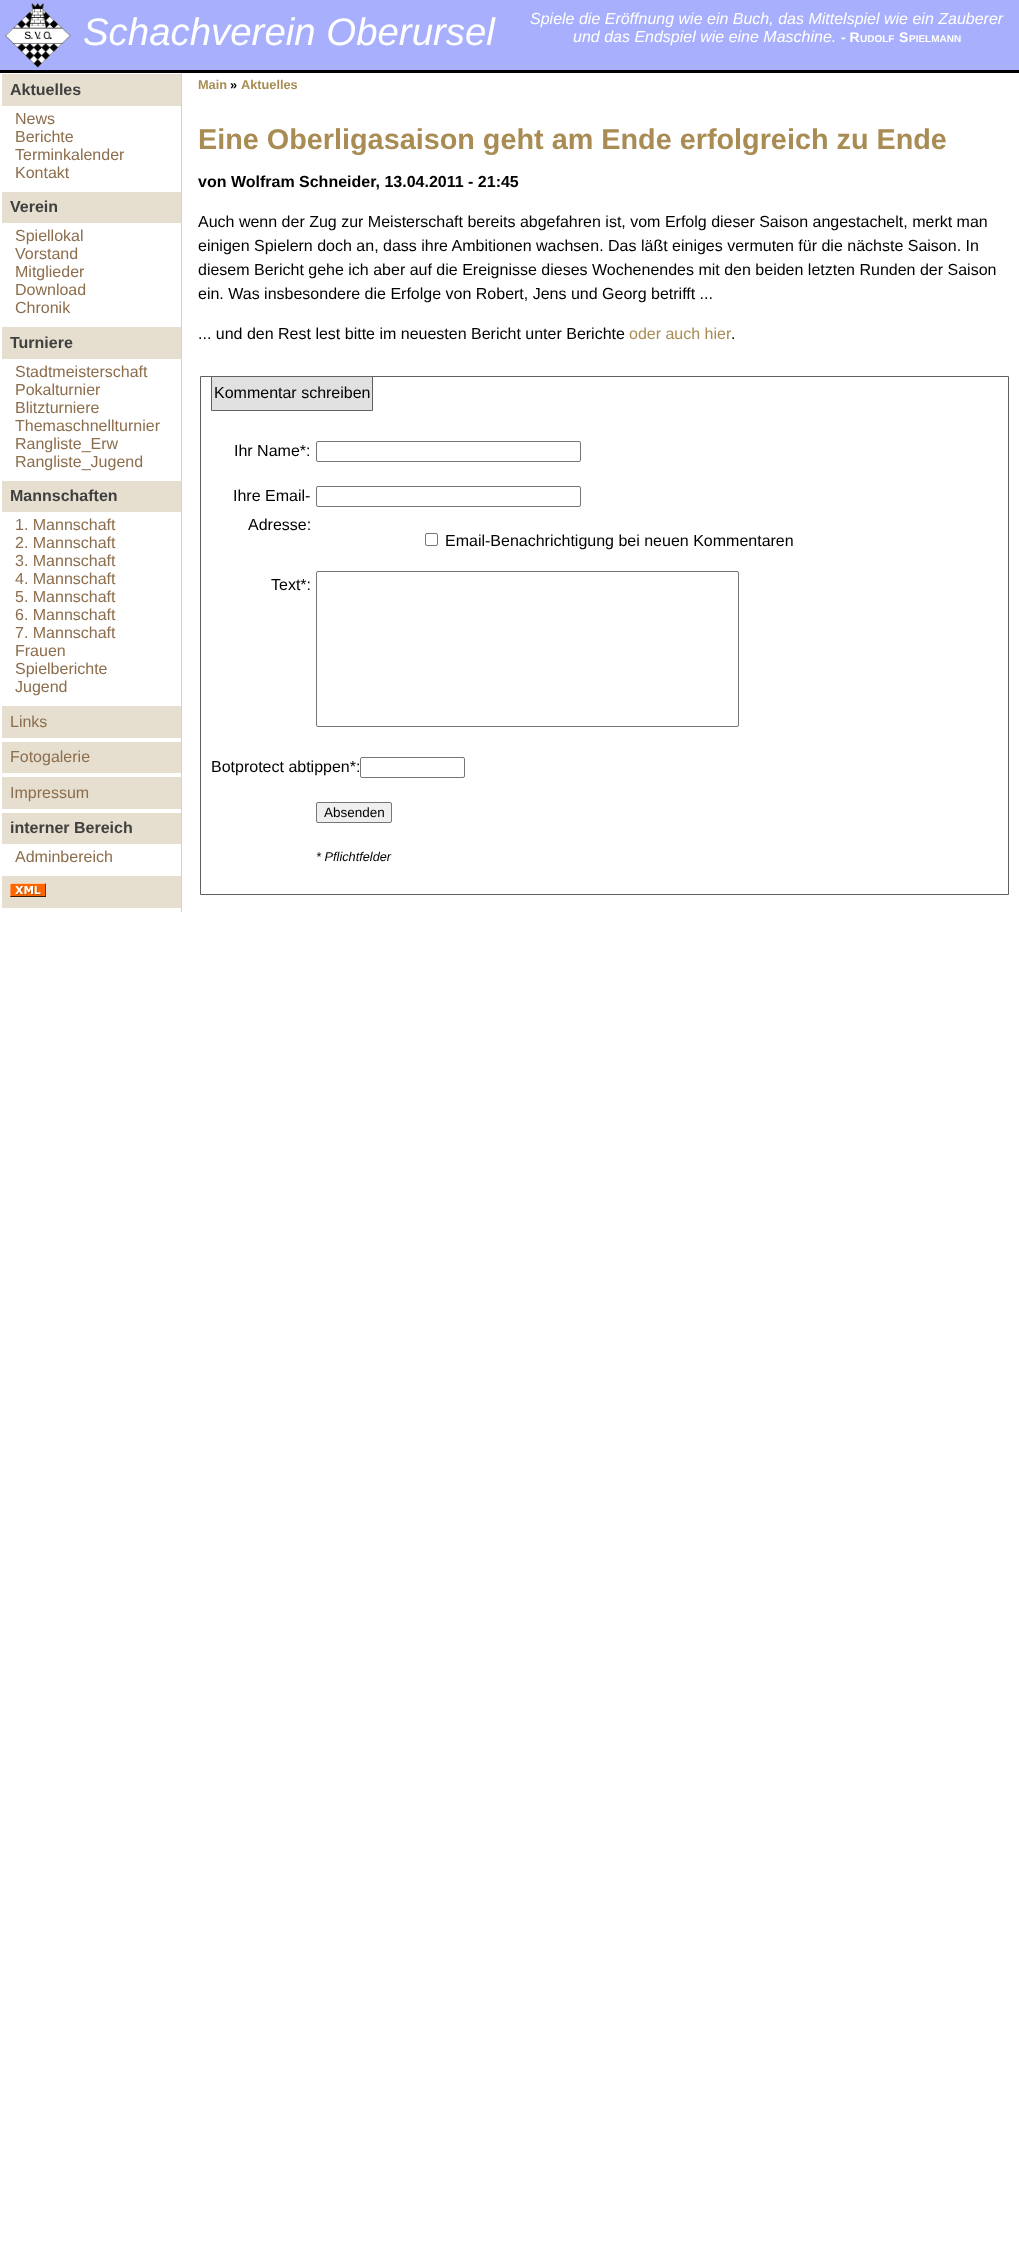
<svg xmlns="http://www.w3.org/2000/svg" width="1019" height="2246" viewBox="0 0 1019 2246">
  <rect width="100%" height="100%" fill="#fff"/>
  <path d="M0 0h1019v70H0z" fill="#a8b0fe"/>
  <path d="M0 70h1019v3H0z" fill="#000"/>
  <image x="4" y="3" width="67" height="65" href="img/1.png"/>
  <path d="M2 74h179v32H2z" fill="#e6dfcf"/>
  <path d="M2 192h179v31H2z" fill="#e6dfcf"/>
  <path d="M2 327h179v32H2z" fill="#e6dfcf"/>
  <path d="M2 481h179v31H2z" fill="#e6dfcf"/>
  <path d="M2 706h179v32H2z" fill="#e6dfcf"/>
  <path d="M2 742h179v31H2z" fill="#e6dfcf"/>
  <path d="M2 777h179v32H2z" fill="#e6dfcf"/>
  <path d="M2 813h179v31H2z" fill="#e6dfcf"/>
  <path d="M2 876h179v32H2z" fill="#e6dfcf"/>
  <image x="10" y="883" width="36" height="14" href="img/2.png"/>
  <path d="M181 73h1v839H181z" fill="#d8d2c3"/>
  <path d="M200.5 376.5h808v518H200.5z" fill="none" stroke="#606060"/>
  <path d="M211.5 376.5h161v34H211.5z" fill="#e1e1e1" stroke="#606060"/>
  <rect x="316.5" y="441.5" width="264" height="20" rx="1.5" fill="none" stroke="#767676"/>
  <rect x="316.5" y="486.5" width="264" height="20" rx="1.5" fill="none" stroke="#767676"/>
  <rect x="425.5" y="533.5" width="12" height="12" rx="1.5" fill="none" stroke="#767676"/>
  <rect x="316.5" y="571.5" width="422" height="155" rx="1.5" fill="none" stroke="#767676"/>
  <rect x="360.5" y="757.5" width="104" height="20" rx="1.5" fill="none" stroke="#767676"/>
  <rect x="316.5" y="802.5" width="75" height="20" rx="1.5" fill="#efefef" stroke="#767676"/>
  <text x="83" y="45" font-family="Liberation Sans" font-size="38.4" font-style="italic" fill="#fff">Schachverein Oberursel</text>
  <g font-family="Liberation Sans" font-size="16" font-style="italic" fill="#fff">
    <text x="530" y="24">Spiele die Eröffnung wie ein Buch, das Mittelspiel wie ein Zauberer</text>
    <text x="573" y="42">und das Endspiel wie eine Maschine.</text>
  </g>
  <text x="841" y="42" font-family="Liberation Sans" font-size="14" font-weight="bold" fill="#fff">- R</text>
  <text x="860" y="42" font-family="Liberation Sans" font-size="10" font-weight="bold" fill="#fff">UDOLF</text>
  <text x="899" y="42" font-family="Liberation Sans" font-size="14" font-weight="bold" fill="#fff">S</text>
  <text x="909" y="42" font-family="Liberation Sans" font-size="10" font-weight="bold" fill="#fff">PIELMANN</text>
  <text x="10" y="95" font-family="Liberation Sans" font-size="16" font-weight="bold" fill="#404040">Aktuelles</text>
  <g font-family="Liberation Sans" font-size="16" fill="#8c6d4c">
    <text x="15" y="124">News</text>
    <text x="15" y="142">Berichte</text>
    <text x="15" y="160">Terminkalender</text>
    <text x="15" y="178">Kontakt</text>
  </g>
  <text x="10" y="212" font-family="Liberation Sans" font-size="16" font-weight="bold" fill="#404040">Verein</text>
  <g font-family="Liberation Sans" font-size="16" fill="#8c6d4c">
    <text x="15" y="241">Spiellokal</text>
    <text x="15" y="259">Vorstand</text>
    <text x="15" y="277">Mitglieder</text>
    <text x="15" y="295">Download</text>
    <text x="15" y="313">Chronik</text>
  </g>
  <text x="10" y="348" font-family="Liberation Sans" font-size="16" font-weight="bold" fill="#404040">Turniere</text>
  <g font-family="Liberation Sans" font-size="16" fill="#8c6d4c">
    <text x="15" y="377">Stadtmeisterschaft</text>
    <text x="15" y="395">Pokalturnier</text>
    <text x="15" y="413">Blitzturniere</text>
    <text x="15" y="431">Themaschnellturnier</text>
    <text x="15" y="449">Rangliste_Erw</text>
    <text x="15" y="467">Rangliste_Jugend</text>
  </g>
  <text x="10" y="501" font-family="Liberation Sans" font-size="16" font-weight="bold" fill="#404040">Mannschaften</text>
  <g font-family="Liberation Sans" font-size="16" fill="#8c6d4c">
    <text x="15" y="530">1. Mannschaft</text>
    <text x="15" y="548">2. Mannschaft</text>
    <text x="15" y="566">3. Mannschaft</text>
    <text x="15" y="584">4. Mannschaft</text>
    <text x="15" y="602">5. Mannschaft</text>
    <text x="15" y="620">6. Mannschaft</text>
    <text x="15" y="638">7. Mannschaft</text>
    <text x="15" y="656">Frauen</text>
    <text x="15" y="674">Spielberichte</text>
    <text x="15" y="692">Jugend</text>
    <text x="10" y="727">Links</text>
    <text x="10" y="762">Fotogalerie</text>
    <text x="10" y="798">Impressum</text>
  </g>
  <text x="10" y="833" font-family="Liberation Sans" font-size="16" font-weight="bold" fill="#404040">interner Bereich</text>
  <text x="15" y="862" font-family="Liberation Sans" font-size="16" fill="#8c6d4c">Adminbereich</text>
  <text x="198" y="89" font-family="Liberation Sans" font-size="12.75" font-weight="bold" fill="#a88c53">Main</text>
  <text x="230" y="89" font-family="Liberation Sans" font-size="12.75" font-weight="bold" fill="#000">»</text>
  <text x="241" y="89" font-family="Liberation Sans" font-size="12.75" font-weight="bold" fill="#a88c53">Aktuelles</text>
  <text x="198" y="149" font-family="Liberation Sans" font-size="28.8" font-weight="bold" fill="#a88c53">Eine Oberligasaison geht am Ende erfolgreich zu Ende</text>
  <text x="198" y="187" font-family="Liberation Sans" font-size="16" font-weight="bold" fill="#000">von Wolfram Schneider, 13.04.2011 - 21:45</text>
  <g font-family="Liberation Sans" font-size="16" fill="#000">
    <text x="198" y="227">Auch wenn der Zug zur Meisterschaft bereits abgefahren ist, vom Erfolg dieser Saison angestachelt, merkt man</text>
    <text x="198" y="251">einigen Spielern doch an, dass ihre Ambitionen wachsen. Das läßt einiges vermuten für die nächste Saison. In</text>
    <text x="198" y="275">diesem Bericht gehe ich aber auf die Ereignisse dieses Wochenendes mit den beiden letzten Runden der Saison</text>
    <text x="198" y="299">ein. Was insbesondere die Erfolge von Robert, Jens und Georg betrifft ...</text>
    <text x="198" y="339">... und den Rest lest bitte im neuesten Bericht unter Berichte</text>
  </g>
  <text x="629" y="339" font-family="Liberation Sans" font-size="16" fill="#a88c53">oder auch hier</text>
  <g font-family="Liberation Sans" font-size="16" fill="#000">
    <text x="731" y="339">.</text>
    <text x="214" y="398">Kommentar schreiben</text>
    <text x="234" y="456">Ihr Name*:</text>
    <text x="233" y="501">Ihre Email-</text>
    <text x="248" y="530">Adresse:</text>
    <text x="445" y="546">Email-Benachrichtigung bei neuen Kommentaren</text>
    <text x="271" y="590">Text*:</text>
    <text x="211" y="772">Botprotect abtippen*:</text>
  </g>
  <text x="324" y="817" font-family="Liberation Sans" font-size="13.5" fill="#000">Absenden</text>
  <text x="316" y="861" font-family="Liberation Sans" font-size="12.75" font-style="italic" fill="#000">* Pflichtfelder</text>
</svg>
